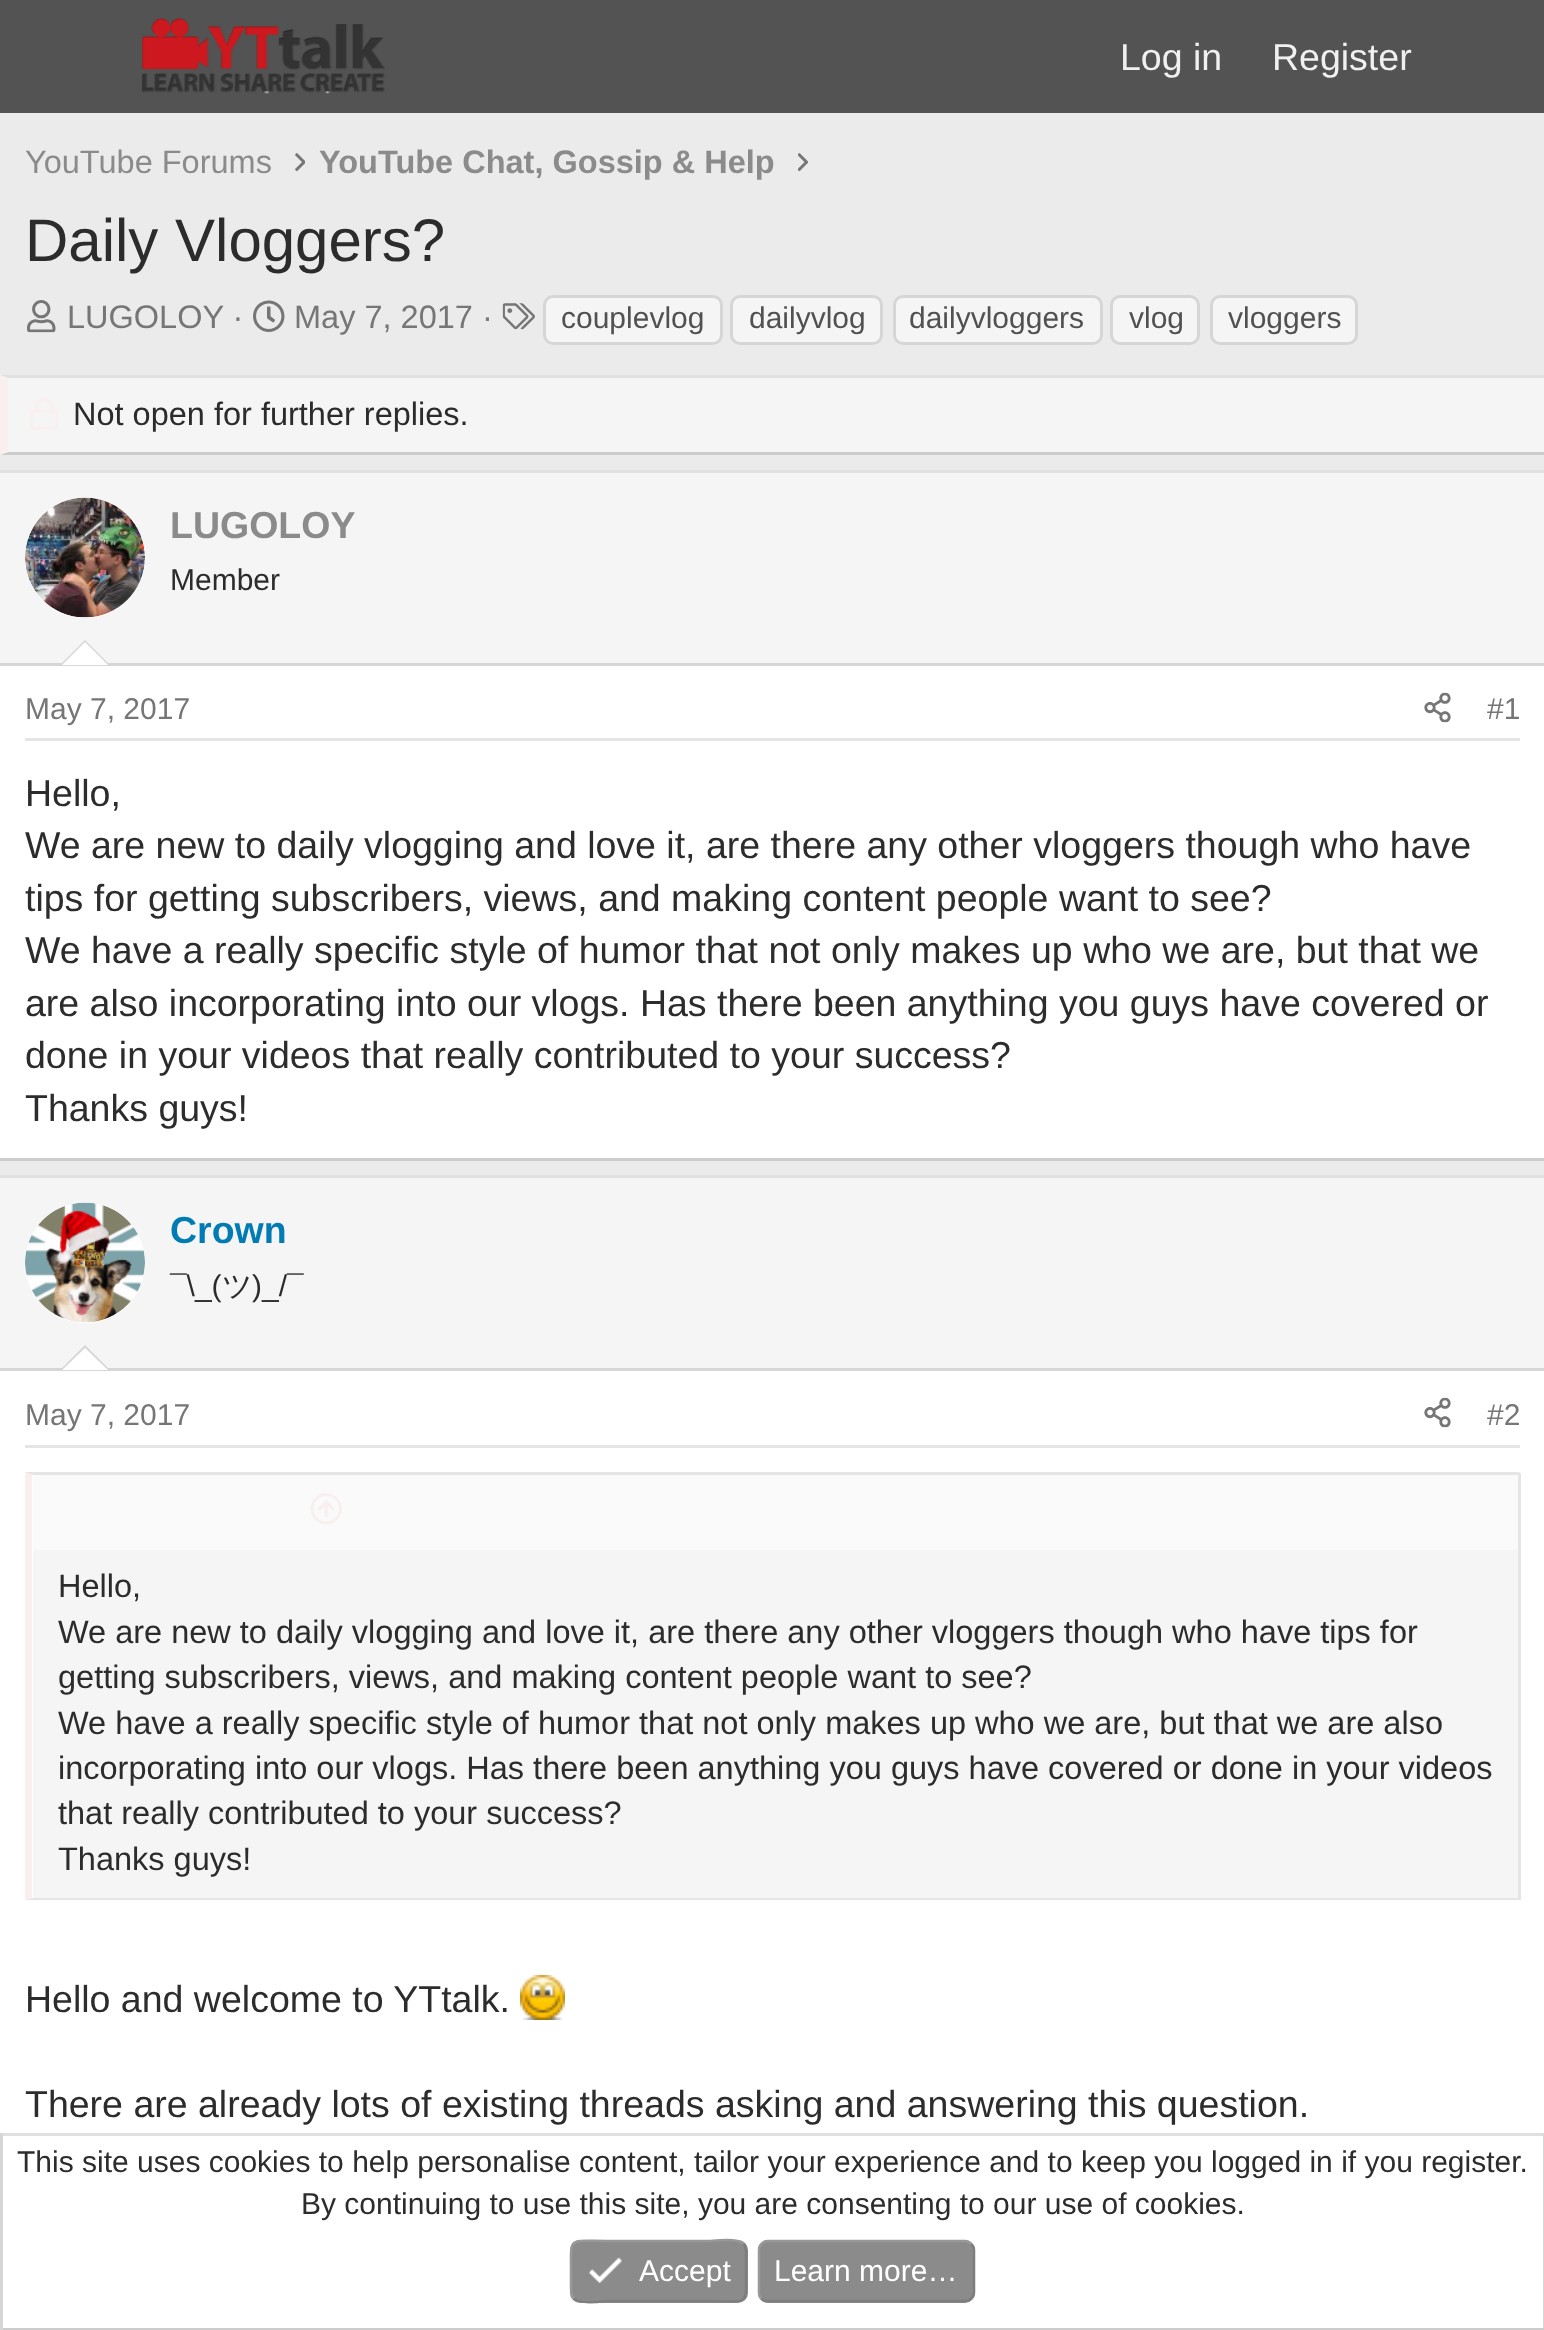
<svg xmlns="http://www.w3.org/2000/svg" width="1544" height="2330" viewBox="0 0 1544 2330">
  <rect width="100%" height="100%" fill="#ebebeb"/>
  <path d="M0 0h1544v113H0z" fill="#535353"/>
  <image x="141" y="18" width="244" height="76" href="img/1.png"/>
  <image x="295" y="153" width="10" height="19" href="img/2.png"/>
  <image x="798" y="153" width="10" height="19" href="img/3.png"/>
  <image x="27" y="300" width="29" height="33" href="img/4.png"/>
  <image x="253" y="300" width="32" height="32" href="img/5.png"/>
  <image x="502" y="303" width="33" height="27" href="img/6.png"/>
  <rect x="544.5" y="296.5" width="177" height="47" rx="8.5" fill="#f5f5f5" stroke="#d6d6d6" stroke-width="3"/>
  <rect x="731.5" y="296.5" width="150" height="47" rx="8.5" fill="#f5f5f5" stroke="#d6d6d6" stroke-width="3"/>
  <rect x="894.5" y="296.5" width="207" height="47" rx="8.5" fill="#f5f5f5" stroke="#d6d6d6" stroke-width="3"/>
  <rect x="1111.5" y="296.5" width="87" height="47" rx="8.5" fill="#f5f5f5" stroke="#d6d6d6" stroke-width="3"/>
  <rect x="1211.5" y="296.5" width="145" height="47" rx="8.5" fill="#f5f5f5" stroke="#d6d6d6" stroke-width="3"/>
  <path d="M0 375h1544v80H0z" fill="#f5f5f5"/>
  <path d="M0 375H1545V378H8Z" fill="#e0e0e0"/>
  <path d="M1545 455H0L8 452H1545Z" fill="#ccc"/>
  <path d="M0 455V375L8 378V452Z" fill="#f9efef"/>
  <image x="30" y="398" width="28" height="32" href="img/7.png"/>
  <path d="M0 666h1544v492H0z" fill="#fff"/>
  <path d="M0 470h1544v3H0z" fill="#e0e0e0"/>
  <path d="M0 1158h1544v3H0z" fill="#ccc"/>
  <path d="M0 473h1544v190H0z" fill="#f5f5f5"/>
  <path d="M0 663h1544v3H0z" fill="#d6d6d6"/>
  <circle cx="85" cy="558" r="60" fill="#fff"/>
  <image x="25" y="497" width="120" height="121" href="img/8.png"/>
  <path d="M110 665H60L85 640Z" fill="#d6d6d6"/>
  <path d="M108 665H62L85 642Z" fill="#fff"/>
  <path d="M25 738h1495v3H25z" fill="#e5e5e5"/>
  <image x="1424" y="692" width="27" height="31" href="img/9.png"/>
  <path d="M0 1371h1544v762H0z" fill="#fff"/>
  <path d="M0 1175h1544v3H0z" fill="#e0e0e0"/>
  <path d="M0 1178h1544v190H0z" fill="#f5f5f5"/>
  <path d="M0 1368h1544v3H0z" fill="#d6d6d6"/>
  <circle cx="85" cy="1263" r="60" fill="#fff"/>
  <image x="25" y="1202" width="120" height="120" href="img/10.png"/>
  <path d="M110 1370H60L85 1345Z" fill="#d6d6d6"/>
  <path d="M108 1370H62L85 1348Z" fill="#fff"/>
  <path d="M25 1445h1495v3H25z" fill="#e5e5e5"/>
  <image x="1424" y="1397" width="27" height="31" href="img/9.png"/>
  <path d="M33 1550h1485v348H33z" fill="#f5f5f5"/>
  <path d="M25 1472H1520L1518 1475H32Z" fill="#e5e5e5"/>
  <path d="M1518 1473h3v427H1518z" fill="#e5e5e5"/>
  <path d="M1520 1900H25L32 1898H1518Z" fill="#e5e5e5"/>
  <path d="M25 1900V1472L32 1475V1898Z" fill="#f9efef"/>
  <path d="M33 1475h1485v75H33z" fill="#fafafa"/>
  <image x="310" y="1493" width="32" height="32" href="img/11.png"/>
  <image x="520" y="1975" width="45" height="45" href="img/12.png"/>
  <path d="M3 2136h1540v192H3z" fill="#fff"/>
  <path d="M0 2133h1544v3H0z" fill="#e0e0e0"/>
  <path d="M1543 2133h1v197H1543z" fill="#d6d6d6"/>
  <path d="M0 2328h1544v2H0z" fill="#ccc"/>
  <path d="M0 2133h3v197H0z" fill="#d6d6d6"/>
  <rect x="570" y="2240" width="178" height="63" rx="10" fill="#8b8b8b"/>
  <path d="M743.5 2244C747 2247.5 746 2252.5 746 2257V2271C746 2306.5 749.5 2301 711 2301H606C605 2301 580 2305 574 2298.5" fill="none" stroke="#7e7e7e" stroke-width="2.5"/>
  <path d="M574 2298.5C570.5 2295 571 2290 571 2285.5V2271C571 2236 568 2241 606 2241H711C712.5 2241 737.5 2237.5 743.5 2244" fill="none" stroke="#989898" stroke-width="2.5"/>
  <image x="589" y="2257" width="33" height="27" href="img/13.png"/>
  <rect x="758" y="2240" width="217" height="63" rx="10" fill="#8b8b8b"/>
  <path d="M971 2244C973 2245.5 974 2247.5 974 2250V2292.5C974 2295 973 2297 971 2298.5C969.5 2300.5 967.5 2301 965 2301H767.5C765 2301 763 2300.5 761.5 2298.5" fill="none" stroke="#7e7e7e" stroke-width="2.5"/>
  <path d="M761.5 2298.5C759.5 2297 759 2295 759 2292.5V2250C759 2247.5 759.5 2245.5 761.5 2244C763 2242 765 2241 767.5 2241H965C967.5 2241 969.5 2242 971 2244" fill="none" stroke="#989898" stroke-width="2.5"/>
  <g font-family="Liberation Sans" font-size="37.5" fill="#f0f0f0">
    <text x="1120" y="70">Log in</text>
    <text x="1272" y="70">Register</text>
  </g>
  <text x="25" y="173" font-family="Liberation Sans" font-size="32.5" fill="#8b8b8b">YouTube Forums</text>
  <text x="319" y="173" font-family="Liberation Sans" font-size="32.5" font-weight="bold" fill="#8b8b8b">YouTube Chat, Gossip &amp; Help</text>
  <text x="25" y="261" font-family="Liberation Sans" font-size="60" fill="#2c2c2c">Daily Vloggers?</text>
  <g font-family="Liberation Sans" font-size="32.5" fill="#767676">
    <text x="67" y="328">LUGOLOY ·</text>
    <text x="294" y="328">May 7, 2017 ·</text>
  </g>
  <g font-family="Liberation Sans" font-size="30" fill="#515151">
    <text x="561" y="328">couplevlog</text>
    <text x="749" y="328">dailyvlog</text>
    <text x="909" y="328">dailyvloggers</text>
    <text x="1129" y="328">vlog</text>
    <text x="1228" y="328">vloggers</text>
  </g>
  <text x="73" y="425" font-family="Liberation Sans" font-size="32.5" fill="#2c2c2c">Not open for further replies.</text>
  <text x="170" y="538" font-family="Liberation Sans" font-size="37.5" font-weight="bold" fill="#8b8b8b">LUGOLOY</text>
  <text x="170" y="590" font-family="Liberation Sans" font-size="30" fill="#2c2c2c">Member</text>
  <g font-family="Liberation Sans" font-size="30" fill="#767676">
    <text x="25" y="719">May 7, 2017</text>
    <text x="1487" y="719">#1</text>
  </g>
  <g font-family="Liberation Sans" font-size="37.5" fill="#2c2c2c">
    <text x="25" y="806">Hello,</text>
    <text x="25" y="858">We are new to daily vlogging and love it, are there any other vloggers though who have</text>
    <text x="25" y="911">tips for getting subscribers, views, and making content people want to see?</text>
    <text x="25" y="963">We have a really specific style of humor that not only makes up who we are, but that we</text>
    <text x="25" y="1016">are also incorporating into our vlogs. Has there been anything you guys have covered or</text>
    <text x="25" y="1068">done in your videos that really contributed to your success?</text>
    <text x="25" y="1121">Thanks guys!</text>
  </g>
  <text x="170" y="1243" font-family="Liberation Sans" font-size="37.5" font-weight="bold" fill="#007bb4">Crown</text>
  <text x="170" y="1296" font-family="Liberation Sans" font-size="30" fill="#2c2c2c">¯\_(</text>
  <text x="222" y="1296" font-family="WenQuanYi Zen Hei" font-size="30" font-weight="500" fill="#2c2c2c">ツ</text>
  <text x="252" y="1296" font-family="Liberation Sans" font-size="30" fill="#2c2c2c">)_/¯</text>
  <g font-family="Liberation Sans" font-size="30" fill="#767676">
    <text x="25" y="1425">May 7, 2017</text>
    <text x="1487" y="1425">#2</text>
  </g>
  <g font-family="Liberation Sans" font-size="32.5" fill="#2c2c2c">
    <text x="58" y="1597">Hello,</text>
    <text x="58" y="1643">We are new to daily vlogging and love it, are there any other vloggers though who have tips for</text>
    <text x="58" y="1688">getting subscribers, views, and making content people want to see?</text>
    <text x="58" y="1734">We have a really specific style of humor that not only makes up who we are, but that we are also</text>
    <text x="58" y="1779">incorporating into our vlogs. Has there been anything you guys have covered or done in your videos</text>
    <text x="58" y="1824">that really contributed to your success?</text>
    <text x="58" y="1870">Thanks guys!</text>
  </g>
  <g font-family="Liberation Sans" font-size="37.5" fill="#2c2c2c">
    <text x="25" y="2012">Hello and welcome to YTtalk.</text>
    <text x="25" y="2117">There are already lots of existing threads asking and answering this question.</text>
  </g>
  <g font-family="Liberation Sans" font-size="30" fill="#2c2c2c">
    <text x="17" y="2172">This site uses cookies to help personalise content, tailor your experience and to keep you logged in if you register.</text>
    <text x="301" y="2214">By continuing to use this site, you are consenting to our use of cookies.</text>
  </g>
  <g font-family="Liberation Sans" font-size="30" fill="#fff">
    <text x="639" y="2281">Accept</text>
    <text x="774" y="2281">Learn more…</text>
  </g>
</svg>
